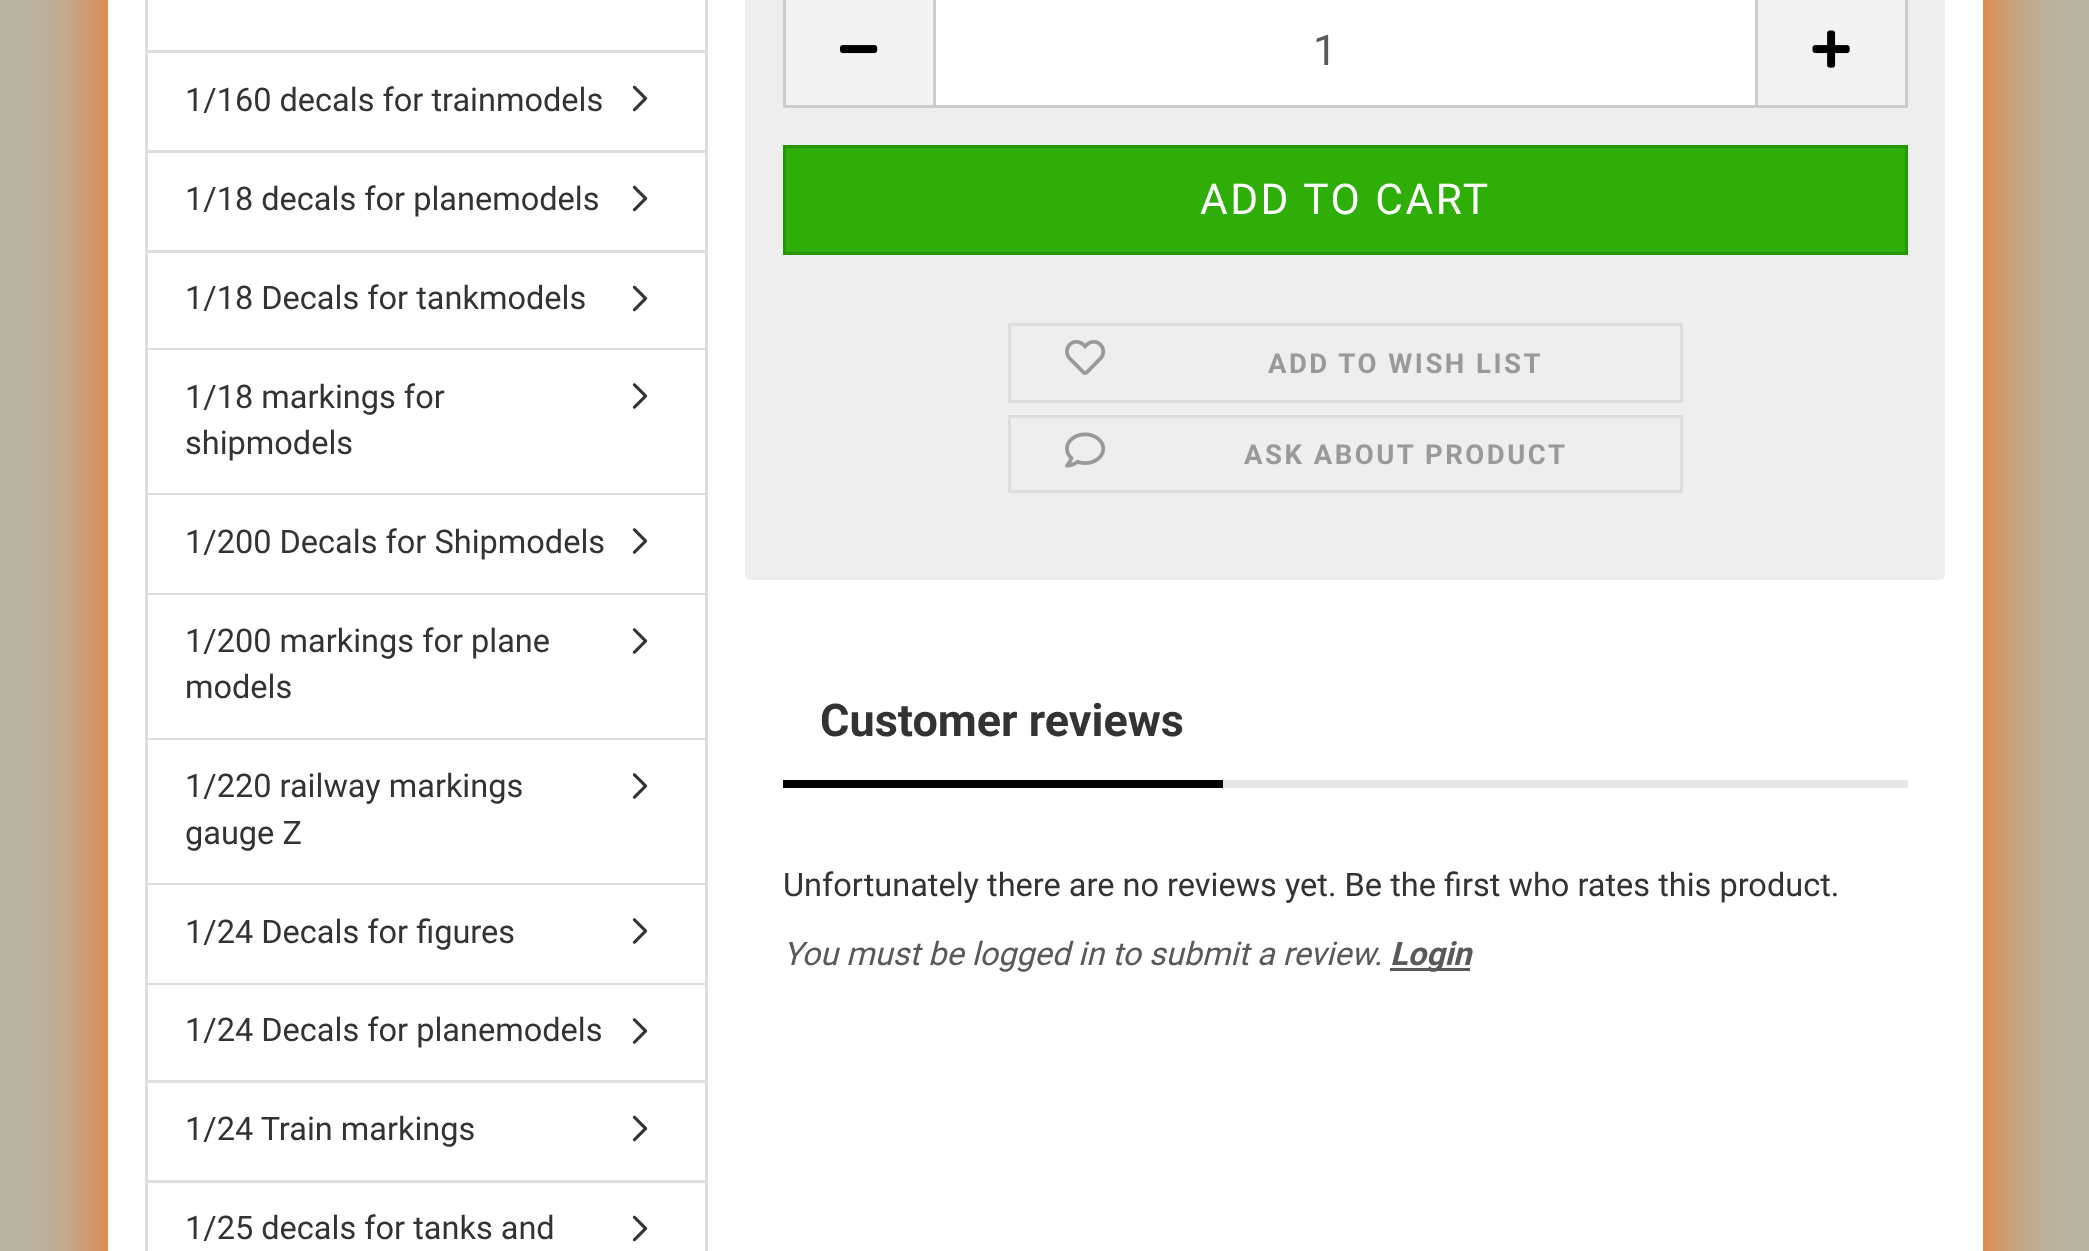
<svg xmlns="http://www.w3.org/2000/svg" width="2089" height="1251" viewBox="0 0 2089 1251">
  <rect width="100%" height="100%" fill="#b8b5a5"/>
  <rect x="108" y="-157" width="1875" height="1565" rx="25" fill="#f60" filter="blur(44px)"/>
  <path d="M108 0h1875v1251H108z" fill="#fff"/>
  <path d="M705 0h3v1251H705z" fill="#ddd"/>
  <path d="M145 0h3v1251H145z" fill="#ddd"/>
  <path d="M148 50h557v3H148z" fill="#ddd"/>
  <path d="M148 150h557v3H148z" fill="#ddd"/>
  <image x="632" y="85" width="16" height="27" href="img/1.png"/>
  <path d="M148 250h557v3H148z" fill="#ddd"/>
  <image x="632" y="185" width="16" height="27" href="img/1.png"/>
  <path d="M148 348h557v2H148z" fill="#ddd"/>
  <image x="632" y="285" width="16" height="27" href="img/1.png"/>
  <path d="M148 493h557v2H148z" fill="#ddd"/>
  <image x="632" y="383" width="16" height="26" href="img/2.png"/>
  <path d="M148 593h557v2H148z" fill="#ddd"/>
  <image x="632" y="528" width="16" height="26" href="img/2.png"/>
  <path d="M148 738h557v2H148z" fill="#ddd"/>
  <image x="632" y="628" width="16" height="26" href="img/2.png"/>
  <path d="M148 883h557v2H148z" fill="#ddd"/>
  <image x="632" y="773" width="16" height="26" href="img/2.png"/>
  <path d="M148 983h557v2H148z" fill="#ddd"/>
  <image x="632" y="918" width="16" height="26" href="img/2.png"/>
  <path d="M148 1080h557v3H148z" fill="#ddd"/>
  <image x="632" y="1018" width="16" height="26" href="img/2.png"/>
  <path d="M148 1180h557v3H148z" fill="#ddd"/>
  <image x="632" y="1115" width="16" height="27" href="img/1.png"/>
  <image x="632" y="1215" width="16" height="27" href="img/1.png"/>
  <rect x="745" y="-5" width="1200" height="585" rx="5" fill="#eee"/>
  <path d="M786 0h147v105H786z" fill="#f3f3f3"/>
  <path d="M783 105h150v3H783z" fill="#ccc"/>
  <path d="M783 0h3v108H783z" fill="#ccc"/>
  <image x="840" y="45" width="38" height="9" href="img/3.png"/>
  <path d="M934.5 -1.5h822v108H934.5z" fill="#fff" stroke="#ccc" stroke-width="3"/>
  <path d="M1758 0h147v105H1758z" fill="#f3f3f3"/>
  <path d="M1905 0h3v108H1905z" fill="#ccc"/>
  <path d="M1758 105h150v3H1758z" fill="#ccc"/>
  <image x="1812" y="30" width="38" height="38" href="img/4.png"/>
  <path d="M784.5 146.5h1122v107H784.5z" fill="#2eae06" stroke="#279505" stroke-width="3"/>
  <path d="M1009.5 324.5h672v77H1009.5z" fill="none" stroke="#ddd" stroke-width="3"/>
  <image x="1065" y="340" width="41" height="35" href="img/5.png"/>
  <path d="M1009.5 416.5h672v75H1009.5z" fill="none" stroke="#ddd" stroke-width="3"/>
  <image x="1065" y="432" width="41" height="36" href="img/6.png"/>
  <path d="M1223 780h685v8H1223z" fill="#e7e7e7"/>
  <path d="M783 780h440v8H783z" fill="#000"/>
  <path d="M1390 968h80v3H1390z" fill="#595959"/>
  <g font-family="Roboto" font-size="32.5" fill="#333">
    <text x="185" y="111">1/160 decals for trainmodels</text>
    <text x="185" y="210">1/18 decals for planemodels</text>
    <text x="185" y="309">1/18 Decals for tankmodels</text>
    <text x="185" y="408">1/18 markings for</text>
    <text x="185" y="454">shipmodels</text>
    <text x="185" y="553">1/200 Decals for Shipmodels</text>
    <text x="185" y="652">1/200 markings for plane</text>
    <text x="185" y="698">models</text>
    <text x="185" y="797">1/220 railway markings</text>
    <text x="185" y="844">gauge Z</text>
    <text x="185" y="943">1/24 Decals for figures</text>
    <text x="185" y="1041">1/24 Decals for planemodels</text>
    <text x="185" y="1140">1/24 Train markings</text>
    <text x="185" y="1239">1/25 decals for tanks and</text>
  </g>
  <text x="1313" y="65" font-family="Roboto" font-size="42.5" fill="#595959">1</text>
  <text x="1200" y="214" font-family="Roboto" font-size="42.5" letter-spacing="2.5" fill="#fff">ADD TO CART</text>
  <g font-family="Roboto" font-size="27.5" font-weight="bold" letter-spacing="2.5" fill="#999">
    <text x="1268" y="373">ADD TO WISH LIST</text>
    <text x="1244" y="464">ASK ABOUT PRODUCT</text>
  </g>
  <text x="820" y="736" font-family="Roboto" font-size="45" font-weight="bold" fill="#333">Customer reviews</text>
  <text x="783" y="896" font-family="Roboto" font-size="32.5" fill="#333">Unfortunately there are no reviews yet. Be the first who rates this product.</text>
  <text x="783" y="965" font-family="Roboto" font-size="32.5" font-style="italic" fill="#595959">You must be logged in to submit a review.</text>
  <text x="1390" y="965" font-family="Roboto" font-size="32.5" font-weight="bold" font-style="italic" fill="#595959">Login</text>
</svg>
